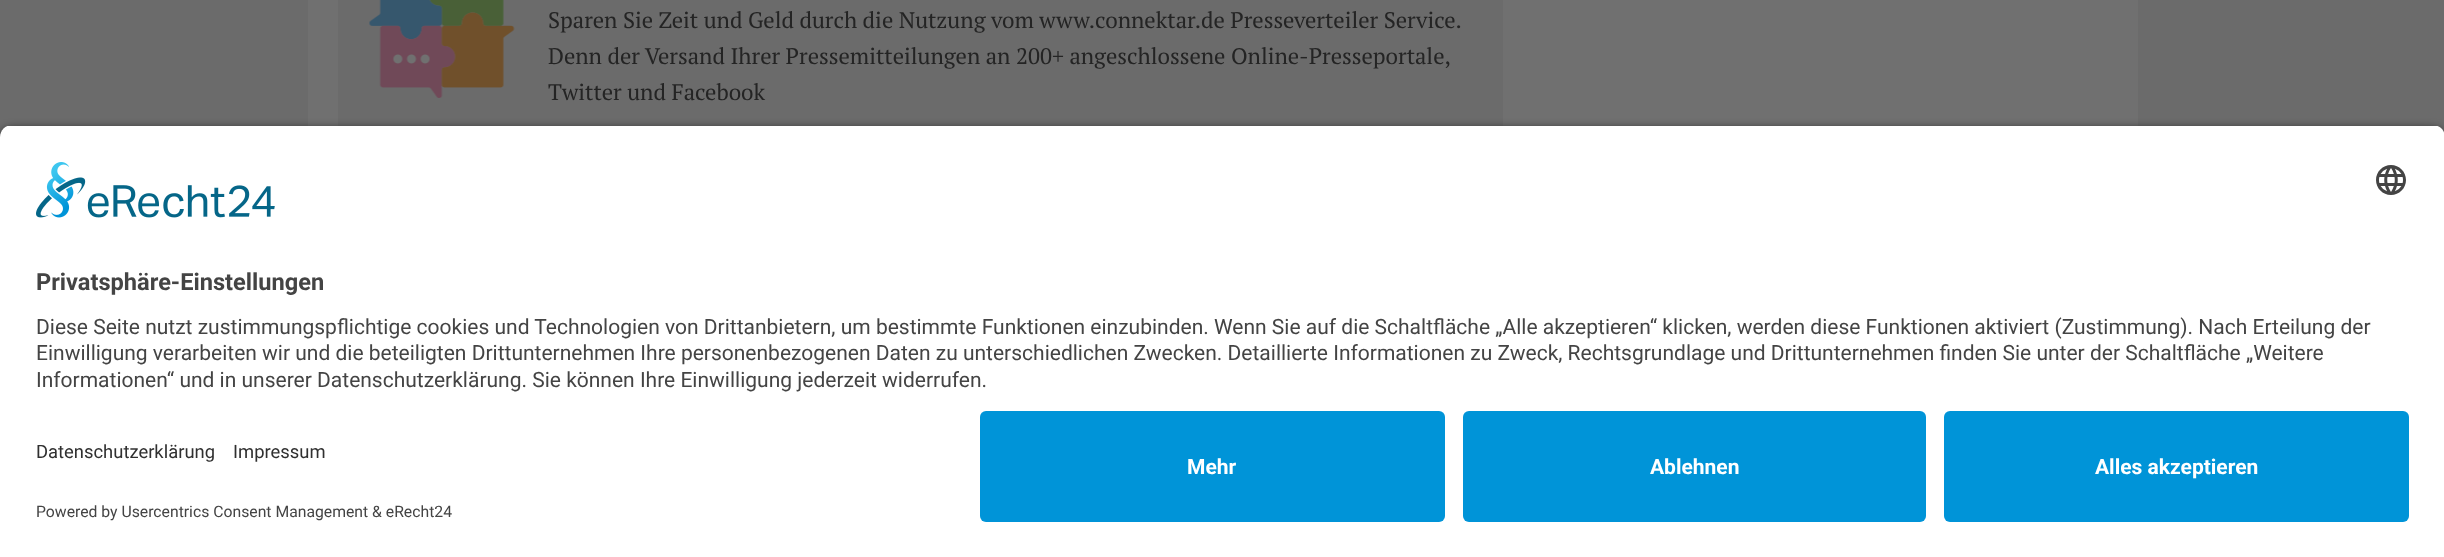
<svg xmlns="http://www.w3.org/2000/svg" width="2444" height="557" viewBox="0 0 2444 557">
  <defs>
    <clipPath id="clip1"><path d="M12 125H2433C2439.5 125 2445 130.5 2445 137V399H0V137C0 130.5 5.5 125 12 125Z"/></clipPath>
  </defs>
  <rect width="100%" height="100%" fill="#6b6b6b"/>
  <path d="M308 0h1830v126H308z" fill="#707070"/>
  <path d="M338 0h1165v126H338z" fill="#6b6b6b"/>
  <image x="369" y="0" width="146" height="98" href="img/1.png"/>
  <rect y="129" width="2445" height="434" rx="12" fill="#000000cc" filter="blur(5px)"/>
  <g clip-path="url(#clip1)">
    <path d="M0 126h2444v273H0z" fill="#fff"/>
  </g>
  <image x="36" y="162" width="239" height="56" href="img/2.png"/>
  <image x="2376" y="165" width="30" height="30" href="img/3.png"/>
  <path d="M0 399h2444v158H0z" fill="#fff"/>
  <rect x="980" y="411" width="465" height="111" rx="6" fill="#0094d8"/>
  <rect x="1463" y="411" width="463" height="111" rx="6" fill="#0094d8"/>
  <rect x="1944" y="411" width="465" height="111" rx="6" fill="#0094d8"/>
  <g font-family="PT Serif" font-size="22.5" fill="#242424">
    <text x="548" y="28">Sparen Sie Zeit und Geld durch die Nutzung vom www.connektar.de Presseverteiler Service.</text>
    <text x="548" y="64">Denn der Versand Ihrer Pressemitteilungen an 200+ angeschlossene Online-Presseportale,</text>
    <text x="548" y="100">Twitter und Facebook</text>
  </g>
  <text x="36" y="290" font-family="Roboto" font-size="23.6" font-weight="bold" fill="#444">Privatsphäre-Einstellungen</text>
  <g font-family="Roboto" font-size="21" fill="#444">
    <text x="36" y="334">Diese Seite nutzt zustimmungspflichtige cookies und Technologien von Drittanbietern, um bestimmte Funktionen einzubinden. Wenn Sie auf die Schaltfläche „Alle akzeptieren“ klicken, werden diese Funktionen aktiviert (Zustimmung). Nach Erteilung der</text>
    <text x="36" y="360">Einwilligung verarbeiten wir und die beteiligten Drittunternehmen Ihre personenbezogenen Daten zu unterschiedlichen Zwecken. Detaillierte Informationen zu Zweck, Rechtsgrundlage und Drittunternehmen finden Sie unter der Schaltfläche „Weitere</text>
    <text x="36" y="387">Informationen“ und in unserer Datenschutzerklärung. Sie können Ihre Einwilligung jederzeit widerrufen.</text>
  </g>
  <g font-family="Roboto" font-size="18.4" fill="#303030">
    <text x="36" y="458">Datenschutzerklärung</text>
    <text x="233" y="458">Impressum</text>
  </g>
  <text x="36" y="517" font-family="Roboto" font-size="15.75" fill="#444">Powered by Usercentrics Consent Management &amp; eRecht24</text>
  <g font-family="Roboto" font-size="21" font-weight="bold" fill="#fff">
    <text x="1187" y="474">Mehr</text>
    <text x="1650" y="474">Ablehnen</text>
    <text x="2095" y="474">Alles akzeptieren</text>
  </g>
</svg>
